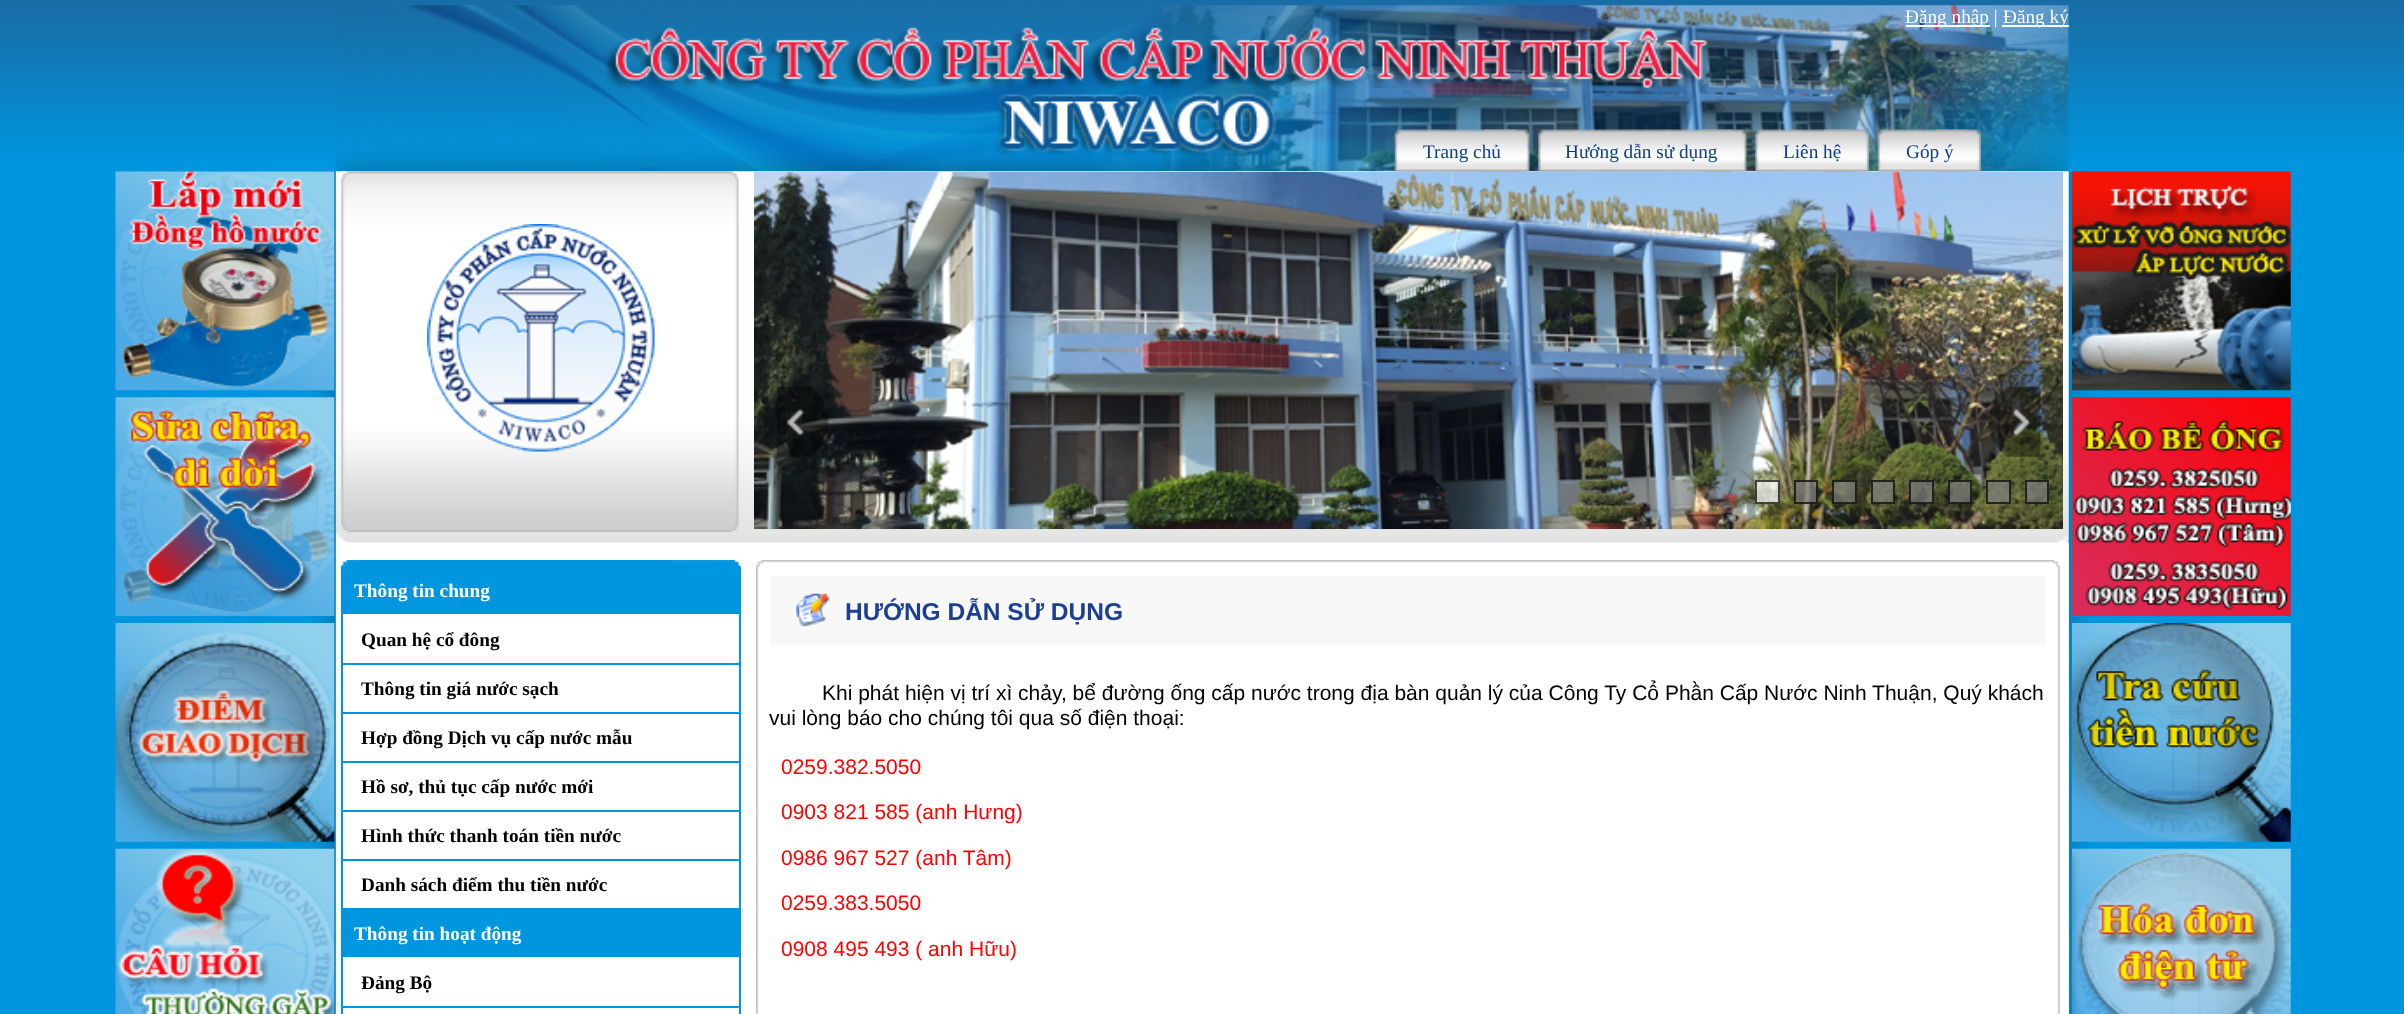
<svg xmlns="http://www.w3.org/2000/svg" width="2404" height="1014" viewBox="0 0 2404 1014">
  <rect width="100%" height="100%" fill="#0096df"/>
  <image x="0" y="0" width="2404" height="158" href="img/1.png"/>
  <image x="336" y="5" width="1733" height="167" href="img/2.png"/>
  <path d="M1906 25h84v2H1906z" fill="#fff"/>
  <path d="M2002 25h67v2H2002z" fill="#fff"/>
  <image x="312" y="171" width="1778" height="843" href="img/11.png"/>
  <image x="336" y="171" width="1733" height="361" href="img/12.png"/>
  <image x="1484" y="129" width="46" height="43" href="img/3.png"/>
  <image x="1394" y="129" width="122" height="43" href="img/4.png"/>
  <image x="1701" y="129" width="46" height="43" href="img/5.png"/>
  <image x="1538" y="129" width="195" height="43" href="img/6.png"/>
  <image x="1823" y="129" width="46" height="43" href="img/7.png"/>
  <image x="1755" y="129" width="100" height="43" href="img/8.png"/>
  <image x="1935" y="129" width="46" height="43" href="img/9.png"/>
  <image x="1877" y="129" width="90" height="43" href="img/10.png"/>
  <image x="115" y="171" width="220" height="220" href="img/13.png"/>
  <image x="115" y="397" width="220" height="219" href="img/14.png"/>
  <image x="115" y="623" width="220" height="219" href="img/15.png"/>
  <image x="115" y="848" width="220" height="166" href="img/16.png"/>
  <image x="341" y="171" width="398" height="361" href="img/17.png"/>
  <image x="427" y="224" width="228" height="228" href="img/18.png"/>
  <image x="754" y="172" width="1309" height="357" href="img/19.png"/>
  <image x="776" y="386" width="54" height="71" href="img/20.png"/>
  <image x="1987" y="386" width="54" height="71" href="img/21.png"/>
  <path d="M1755 480h25v24H1755z" fill="#ffffffb3"/>
  <path d="M1756 481h23v22H1756z" fill="none" stroke="#000000b3" stroke-width="2"/>
  <path d="M1794 480h24v24H1794z" fill="#808080b3"/>
  <path d="M1795 481h22v22H1795z" fill="none" stroke="#000000b3" stroke-width="2"/>
  <path d="M1832 480h25v24H1832z" fill="#808080b3"/>
  <path d="M1833 481h23v22H1833z" fill="none" stroke="#000000b3" stroke-width="2"/>
  <path d="M1871 480h24v24H1871z" fill="#808080b3"/>
  <path d="M1872 481h22v22H1872z" fill="none" stroke="#000000b3" stroke-width="2"/>
  <path d="M1909 480h25v24H1909z" fill="#808080b3"/>
  <path d="M1910 481h23v22H1910z" fill="none" stroke="#000000b3" stroke-width="2"/>
  <path d="M1948 480h24v24H1948z" fill="#808080b3"/>
  <path d="M1949 481h22v22H1949z" fill="none" stroke="#000000b3" stroke-width="2"/>
  <path d="M1986 480h25v24H1986z" fill="#808080b3"/>
  <path d="M1987 481h23v22H1987z" fill="none" stroke="#000000b3" stroke-width="2"/>
  <path d="M2025 480h24v24H2025z" fill="#808080b3"/>
  <path d="M2026 481h22v22H2026z" fill="none" stroke="#000000b3" stroke-width="2"/>
  <image x="2072" y="171" width="219" height="220" href="img/22.png"/>
  <image x="2072" y="397" width="219" height="219" href="img/23.png"/>
  <image x="2072" y="623" width="219" height="219" href="img/24.png"/>
  <image x="2072" y="848" width="219" height="166" href="img/25.png"/>
  <image x="336" y="532" width="1733" height="11" href="img/26.png"/>
  <path d="M336 543h1733v471H336z" fill="#fff"/>
  <image x="341" y="560" width="400" height="7" href="img/27.png"/>
  <path d="M739 567h2v447H739z" fill="#0096df"/>
  <path d="M341 567h2v447H341z" fill="#0096df"/>
  <path d="M343 567h396v47H343z" fill="#0096df"/>
  <path d="M343 663h396v2H343z" fill="#0096df"/>
  <path d="M343 712h396v2H343z" fill="#0096df"/>
  <path d="M343 761h396v2H343z" fill="#0096df"/>
  <path d="M343 810h396v2H343z" fill="#0096df"/>
  <path d="M343 859h396v2H343z" fill="#0096df"/>
  <path d="M343 908h396v49H343z" fill="#0096df"/>
  <path d="M343 1006h396v2H343z" fill="#0096df"/>
  <image x="756" y="560" width="1304" height="7" href="img/28.png"/>
  <image x="756" y="567" width="1304" height="447" href="img/29.png"/>
  <path d="M770 576h1276v70H770z" fill="#f8f8f8"/>
  <image x="796" y="593" width="34" height="34" href="img/30.png"/>
  <g font-family="Liberation Serif" font-size="19.25" fill="#fff">
    <text x="1905" y="23">Đăng nhập |</text>
    <text x="2003" y="23">Đăng ký</text>
  </g>
  <g font-family="Liberation Serif" font-size="19.25" fill="#0c3e81">
    <text x="1423" y="158">Trang chủ</text>
    <text x="1565" y="158">Hướng dẫn sử dụng</text>
    <text x="1783" y="158">Liên hệ</text>
    <text x="1906" y="158">Góp ý</text>
  </g>
  <text x="354" y="597" font-family="Liberation Serif" font-size="19.25" font-weight="bold" fill="#fff">Thông tin chung</text>
  <g font-family="Liberation Serif" font-size="19.25" font-weight="bold" fill="#000">
    <text x="361" y="646">Quan hệ cổ đông</text>
    <text x="361" y="695">Thông tin giá nước sạch</text>
    <text x="361" y="744">Hợp đồng Dịch vụ cấp nước mẫu</text>
    <text x="361" y="793">Hồ sơ, thủ tục cấp nước mới</text>
    <text x="361" y="842">Hình thức thanh toán tiền nước</text>
    <text x="361" y="891">Danh sách điểm thu tiền nước</text>
  </g>
  <text x="354" y="940" font-family="Liberation Serif" font-size="19.25" font-weight="bold" fill="#fff">Thông tin hoạt động</text>
  <text x="361" y="989" font-family="Liberation Serif" font-size="19.25" font-weight="bold" fill="#000">Đảng Bộ</text>
  <text x="845" y="620" font-family="Liberation Sans" font-size="24.5" font-weight="bold" fill="#1b3f95">HƯỚNG DẪN SỬ DỤNG</text>
  <g font-family="Liberation Sans" font-size="21" fill="#000">
    <text x="822" y="700">Khi phát hiện vị trí xì chảy, bể đường ống cấp nước trong địa bàn quản lý của Công Ty Cổ Phần Cấp Nước Ninh Thuận, Quý khách</text>
    <text x="769" y="725">vui lòng báo cho chúng tôi qua số điện thoại:</text>
  </g>
  <g font-family="Liberation Sans" font-size="21" fill="#f00">
    <text x="781" y="774">0259.382.5050</text>
    <text x="781" y="819">0903 821 585 (anh Hưng)</text>
    <text x="781" y="865">0986 967 527 (anh Tâm)</text>
    <text x="781" y="910">0259.383.5050</text>
    <text x="781" y="956">0908 495 493 ( anh Hữu)</text>
  </g>
</svg>
